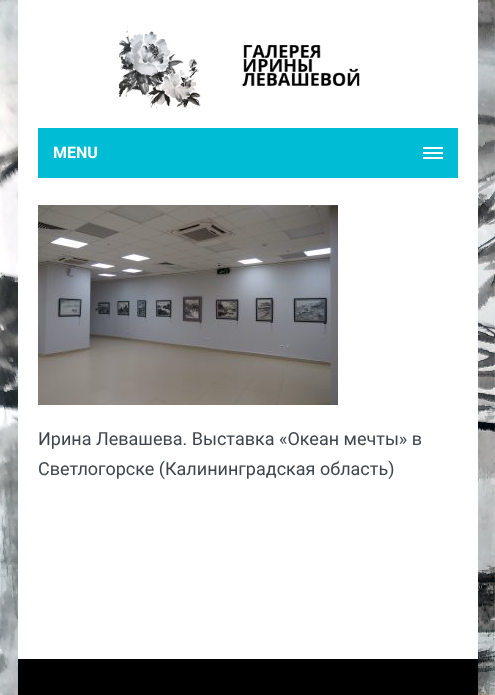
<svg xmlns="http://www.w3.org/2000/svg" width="495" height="695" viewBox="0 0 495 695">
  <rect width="100%" height="100%" fill="#fff"/>
  <image x="0" y="0" width="495" height="695" href="img/1.png"/>
  <path d="M18 0h460v659H18z" fill="#fff"/>
  <image x="119" y="25" width="241" height="83" href="img/2.png"/>
  <path d="M38 128h420v50H38z" fill="#00bcd4"/>
  <path d="M423 152h20v2H423z" fill="#fff"/>
  <path d="M423 147h20v2H423z" fill="#fff"/>
  <path d="M423 157h20v2H423z" fill="#fff"/>
  <image x="38" y="205" width="300" height="200" href="img/3.png"/>
  <path d="M18 659h460v36H18z" fill="#000"/>
  <text x="53" y="158" font-family="Roboto" font-size="16" font-weight="bold" fill="#fff">MENU</text>
  <g font-family="Roboto" font-size="18" fill="#3e454c">
    <text x="38" y="445">Ирина Левашева. Выставка «Океан мечты» в</text>
    <text x="38" y="475">Светлогорске (Калининградская область)</text>
  </g>
</svg>
